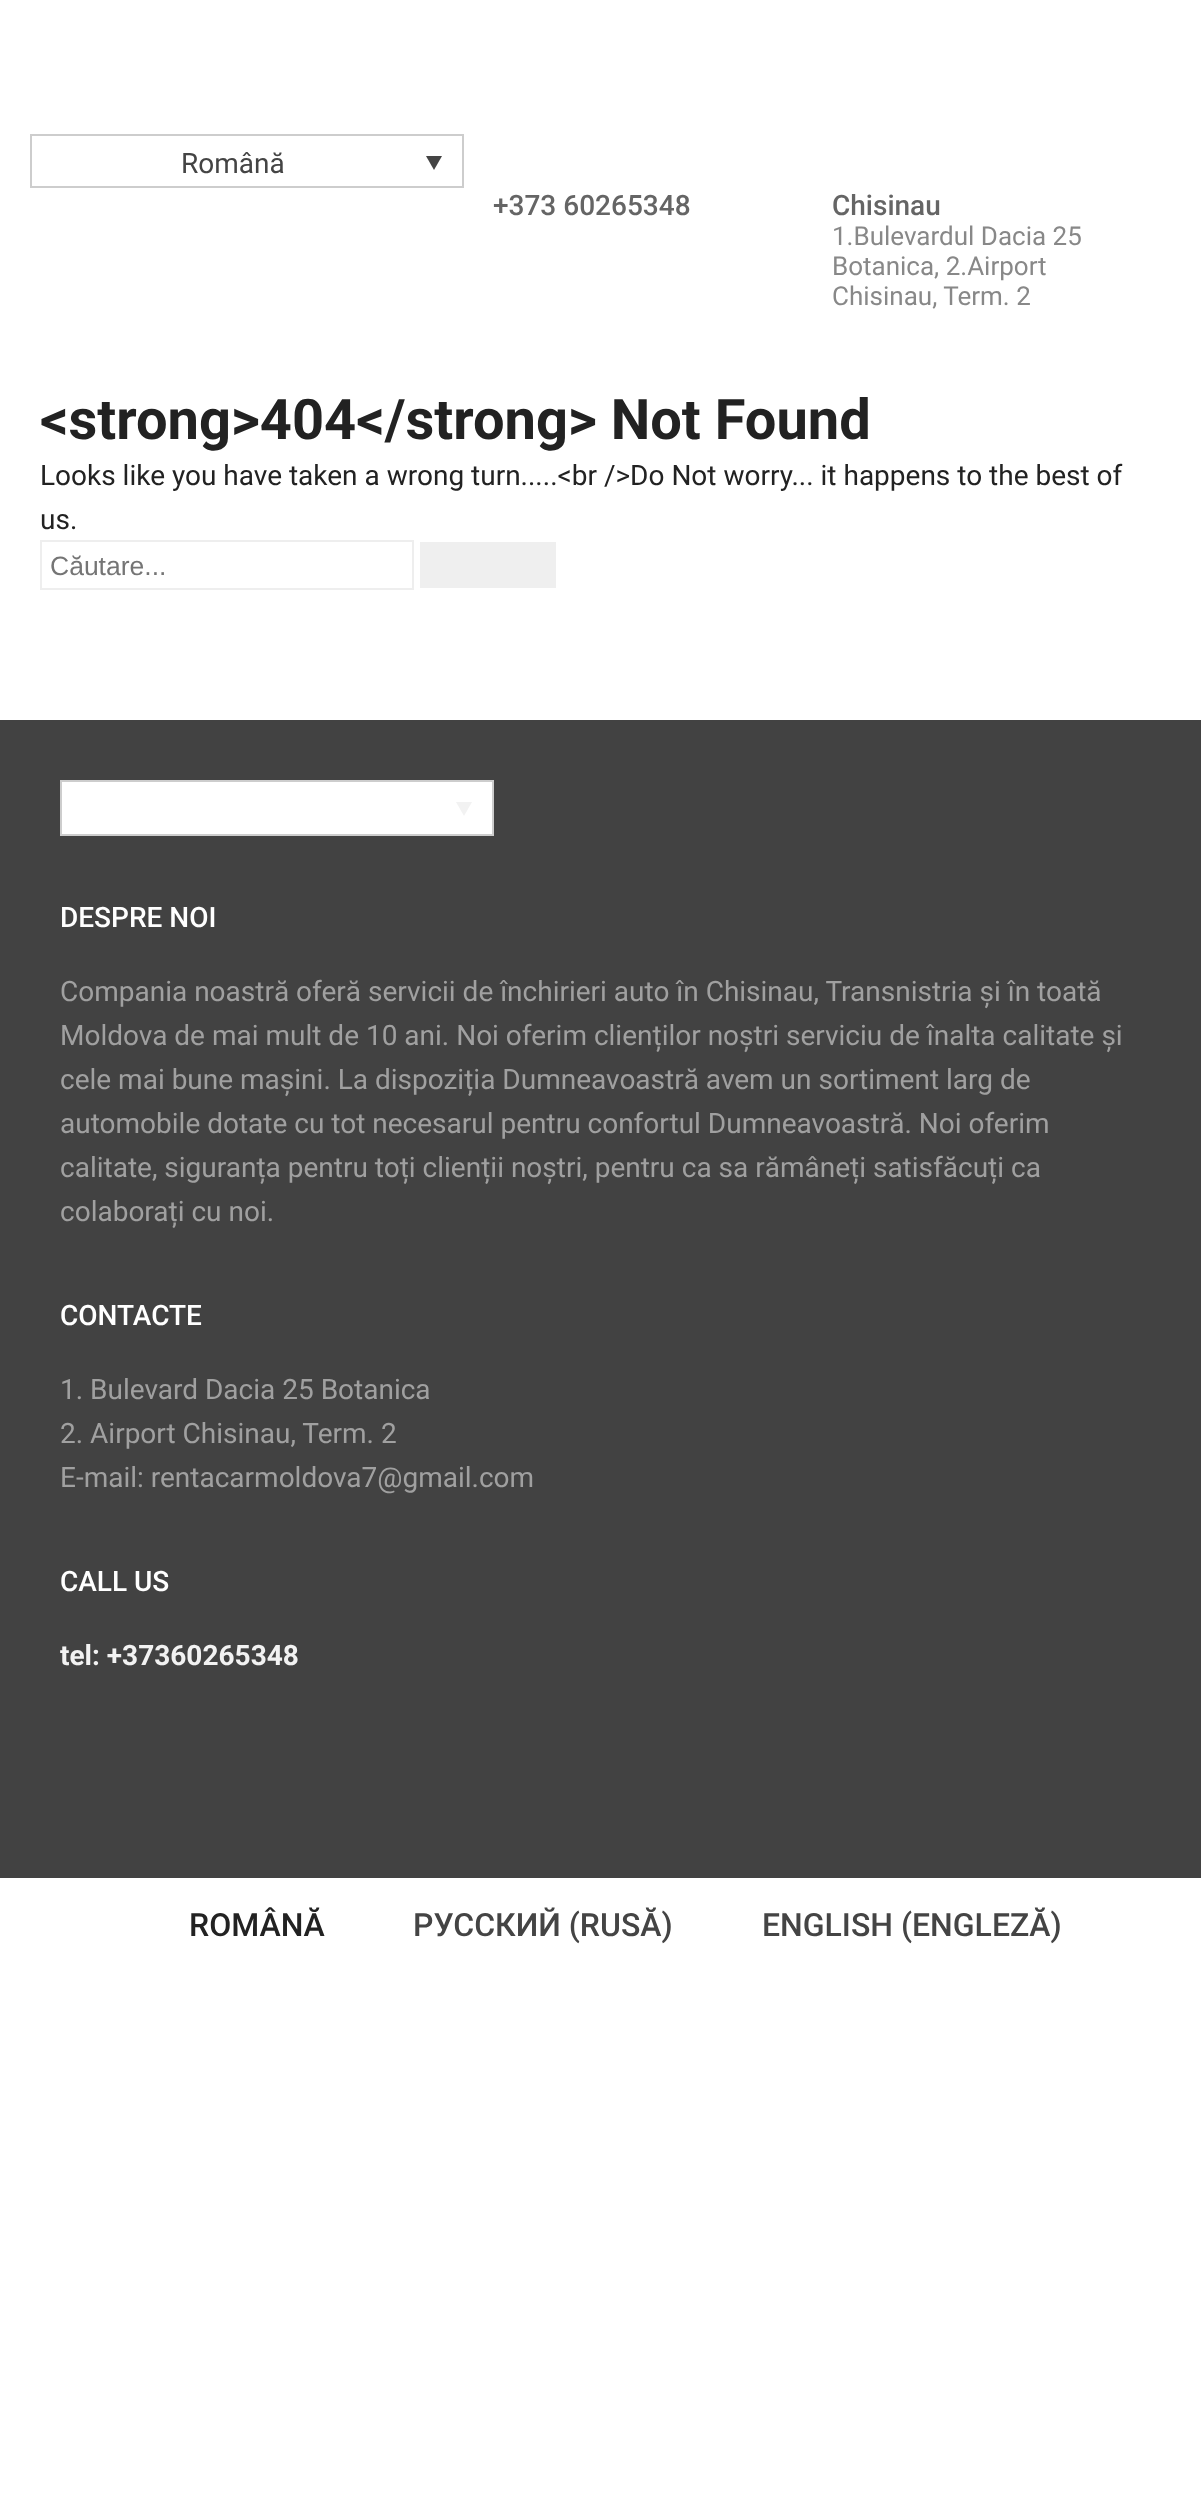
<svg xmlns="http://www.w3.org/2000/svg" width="1201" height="2513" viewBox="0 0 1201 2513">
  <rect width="100%" height="100%" fill="#fff"/>
  <path d="M31 135h432v52H31z" fill="none" stroke="#cdcdcd" stroke-width="2"/>
  <path d="M426 156H442L434 170Z" fill="#444"/>
  <path d="M41 541h372v48H41z" fill="none" stroke="#eee" stroke-width="2"/>
  <path d="M420 542h136v46H420z" fill="#efefef"/>
  <path d="M0 720h1201v1158H0z" fill="#424242"/>
  <path d="M61 781h432v54H61z" fill="#fff" stroke="#cdcdcd" stroke-width="2"/>
  <path d="M456 802H472L464 816Z" fill="#f2f2f2"/>
  <text x="181" y="173" font-family="Roboto" font-size="28" fill="#444">Română</text>
  <g font-family="Roboto" font-size="28" font-weight="500" fill="#656565">
    <text x="493" y="215">+373 60265348</text>
    <text x="832" y="215">Chisinau</text>
  </g>
  <g font-family="Roboto" font-size="26" fill="#888">
    <text x="832" y="245">1.Bulevardul Dacia 25</text>
    <text x="832" y="275">Botanica, 2.Airport</text>
    <text x="832" y="305">Chisinau, Term. 2</text>
  </g>
  <text x="40" y="439" font-family="Roboto" font-size="56" font-weight="bold" fill="#222">&lt;strong&gt;404&lt;/strong&gt; Not Found</text>
  <g font-family="Roboto" font-size="28" fill="#222">
    <text x="40" y="485">Looks like you have taken a wrong turn.....&lt;br /&gt;Do Not worry... it happens to the best of</text>
    <text x="40" y="529">us.</text>
  </g>
  <text x="50" y="575" font-family="Liberation Sans" font-size="26.5" fill="#757575">Căutare...</text>
  <text x="60" y="927" font-family="Roboto" font-size="28" font-weight="500" fill="#fff">DESPRE NOI</text>
  <g font-family="Roboto" font-size="28" fill="#a0a0a0">
    <text x="60" y="1001">Compania noastră oferă servicii de închirieri auto în Chisinau, Transnistria și în toată</text>
    <text x="60" y="1045">Moldova de mai mult de 10 ani. Noi oferim clienților noștri serviciu de înalta calitate și</text>
    <text x="60" y="1089">cele mai bune mașini. La dispoziția Dumneavoastră avem un sortiment larg de</text>
    <text x="60" y="1133">automobile dotate cu tot necesarul pentru confortul Dumneavoastră. Noi oferim</text>
    <text x="60" y="1177">calitate, siguranța pentru toți clienții noștri, pentru ca sa rămâneți satisfăcuți ca</text>
    <text x="60" y="1221">colaborați cu noi.</text>
  </g>
  <text x="60" y="1325" font-family="Roboto" font-size="28" font-weight="500" fill="#fff">CONTACTE</text>
  <g font-family="Roboto" font-size="28" fill="#a0a0a0">
    <text x="60" y="1399">1. Bulevard Dacia 25 Botanica</text>
    <text x="60" y="1443">2. Airport Chisinau, Term. 2</text>
    <text x="60" y="1487">E-mail: rentacarmoldova7@gmail.com</text>
  </g>
  <text x="60" y="1591" font-family="Roboto" font-size="28" font-weight="500" fill="#fff">CALL US</text>
  <text x="60" y="1665" font-family="Roboto" font-size="28" font-weight="bold" fill="#f2f2f2">tel: +37360265348</text>
  <text x="189" y="1936" font-family="Roboto" font-size="32" font-weight="500" fill="#222">ROMÂNĂ</text>
  <g font-family="Roboto" font-size="32" font-weight="500" fill="#444">
    <text x="413" y="1936">РУССКИЙ (RUSĂ)</text>
    <text x="762" y="1936">ENGLISH (ENGLEZĂ)</text>
  </g>
</svg>
